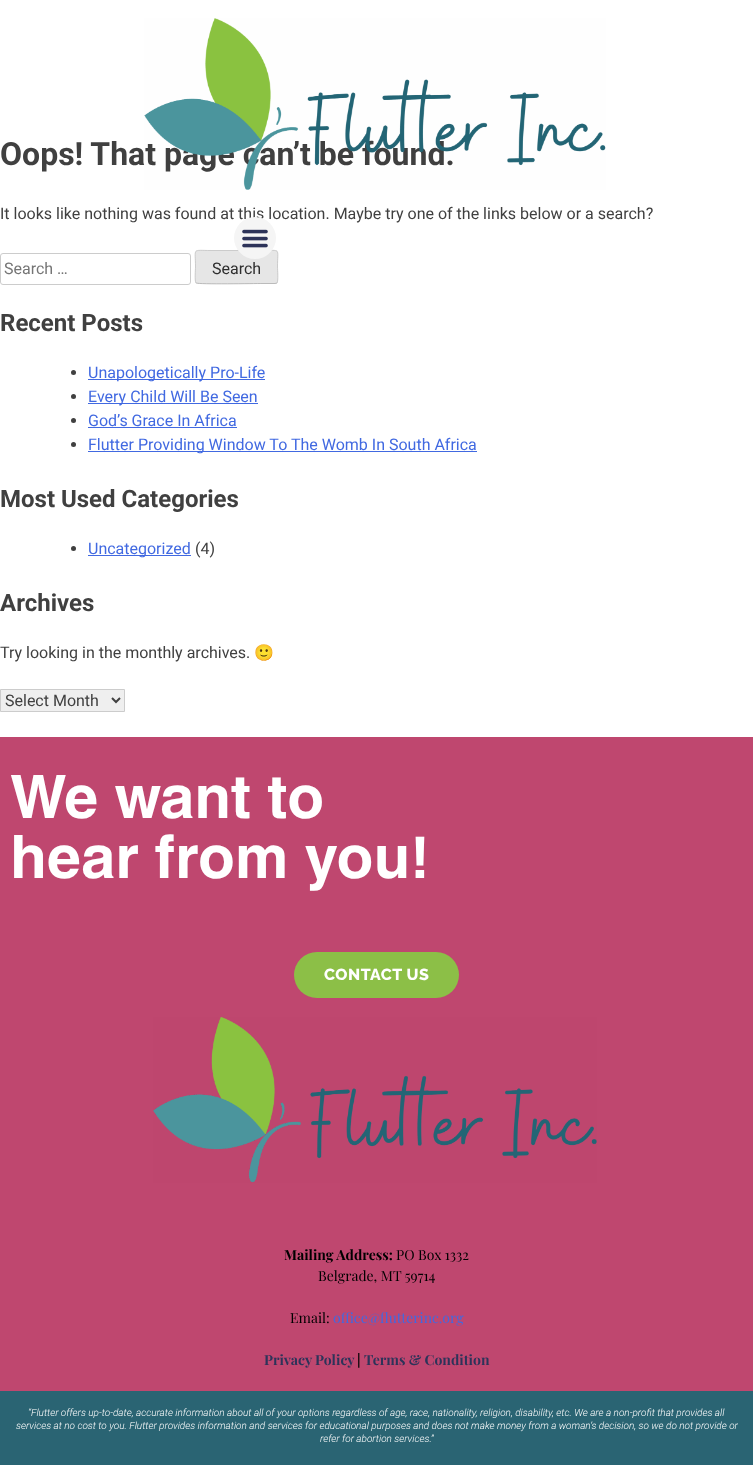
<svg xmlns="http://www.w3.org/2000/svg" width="753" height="1472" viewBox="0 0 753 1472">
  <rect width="100%" height="100%" fill="#fff"/>
  <rect x="0.5" y="253.5" width="190" height="31" rx="2.5" fill="none" stroke="#ccc"/>
  <rect x="195" y="250" width="83" height="34" rx="3" fill="#e6e6e6"/>
  <path d="M277 283L275 283.5H262C255 283.5 198.5 284.5 196.5 283H196" fill="none" stroke="#bbb"/>
  <path d="M196 283C194.5 281 195.5 269.5 195.5 267C195.5 247.5 191.5 250.5 211 250.5H262C281.5 250.5 277.5 247.5 277.5 267C277.5 269.5 278.5 281 277 283" fill="none" stroke="#ccc"/>
  <circle cx="73.5" cy="372.5" r="2.5" fill="#404040"/>
  <path d="M88 379h177v1H88z" fill="#4169e1"/>
  <circle cx="73.5" cy="396.5" r="2.5" fill="#404040"/>
  <path d="M88 403h170v1H88z" fill="#4169e1"/>
  <circle cx="73.5" cy="420.5" r="2.5" fill="#404040"/>
  <path d="M88 427h149v1H88z" fill="#4169e1"/>
  <circle cx="73.5" cy="444.5" r="2.5" fill="#404040"/>
  <path d="M88 451h389v1H88z" fill="#4169e1"/>
  <circle cx="73.5" cy="548.5" r="2.5" fill="#404040"/>
  <path d="M88 555h103v1H88z" fill="#4169e1"/>
  <path d="M0.5 689.5h124v22H0.5z" fill="#efefef" stroke="#ccc"/>
  <path d="M112 698L116 702L120 698" fill="none" stroke="#404040" stroke-width="2"/>
  <path d="M0 737h753v654H0z" fill="#bf476f"/>
  <rect x="294" y="952" width="165" height="46" rx="23" fill="#8cbf47"/>
  <image x="153" y="1017" width="444" height="166" href="img/3.png"/>
  <path d="M0 1391h753v74H0z" fill="#2a6473"/>
  <text x="0" y="165" font-family="Roboto" font-size="32" font-weight="bold" fill="#404040">Oops! That page can’t be found.</text>
  <image x="144" y="18" width="462" height="172" href="img/1.png"/>
  <text x="0" y="219" font-family="Roboto" font-size="16" fill="#404040">It looks like nothing was found at this location. Maybe try one of the links below or a search?</text>
  <circle cx="255" cy="238" r="21" fill="#f5f5f5"/>
  <image x="242" y="229" width="26" height="19" href="img/2.png"/>
  <text x="4" y="274" font-family="Roboto" font-size="16" fill="#757575">Search …</text>
  <text x="212" y="274" font-family="Roboto" font-size="16" fill="#2e2e2e">Search</text>
  <text x="0" y="331" font-family="Roboto" font-size="24" font-weight="bold" fill="#404040">Recent Posts</text>
  <g font-family="Roboto" font-size="16" fill="#4169e1">
    <text x="88" y="378">Unapologetically Pro-Life</text>
    <text x="88" y="402">Every Child Will Be Seen</text>
    <text x="88" y="426">God’s Grace In Africa</text>
    <text x="88" y="450">Flutter Providing Window To The Womb In South Africa</text>
  </g>
  <text x="0" y="507" font-family="Roboto" font-size="24" font-weight="bold" fill="#404040">Most Used Categories</text>
  <text x="88" y="554" font-family="Roboto" font-size="16" fill="#4169e1">Uncategorized</text>
  <text x="195" y="554" font-family="Roboto" font-size="16" fill="#404040">(4)</text>
  <text x="0" y="611" font-family="Roboto" font-size="24" font-weight="bold" fill="#404040">Archives</text>
  <text x="0" y="658" font-family="Roboto" font-size="16" fill="#404040">Try looking in the monthly archives.</text>
  <text x="254" y="658" font-family="Noto Color Emoji" font-size="16" fill="#404040">🙂</text>
  <text x="5" y="706" font-family="Roboto" font-size="16" fill="#404040">Select Month</text>
  <g font-family="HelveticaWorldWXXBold" font-size="60" font-weight="bold" fill="#fff">
    <text x="10" y="818">We want to</text>
    <text x="10" y="878">hear from you</text>
  </g>
  <text x="410" y="878" font-family="Liberation Sans" font-size="60" font-weight="bold" fill="#fff">!</text>
  <text x="324" y="980" font-family="Raleway" font-size="16" font-weight="800" letter-spacing="0.5" fill="#fff">CONTACT US</text>
  <text x="284" y="1260" font-family="Playfair Display" font-size="14" font-weight="bold" fill="#000">Mailing Address:</text>
  <g font-family="Playfair Display" font-size="14" fill="#000">
    <text x="396" y="1260">PO Box 1332</text>
    <text x="318" y="1281">Belgrade, MT 59714</text>
    <text x="290" y="1323">Email:</text>
  </g>
  <text x="333" y="1323" font-family="Playfair Display" font-size="14" fill="#4169e1">office@flutterinc.org</text>
  <text x="264" y="1365" font-family="Playfair Display" font-size="14" font-weight="bold" fill="#2d3359">Privacy Policy</text>
  <text x="357" y="1365" font-family="Playfair Display" font-size="14" font-weight="bold" fill="#000">|</text>
  <text x="364" y="1365" font-family="Playfair Display" font-size="14" font-weight="bold" fill="#2d3359">Terms &amp; Condition</text>
  <g font-family="Roboto" font-size="10" font-weight="300" font-style="italic" fill="#fff">
    <text x="28" y="1416">“Flutter offers up-to-date, accurate information about all of your options regardless of age, race, nationality, religion, disability, etc. We are a non-profit that provides all</text>
    <text x="16" y="1429">services at no cost to you. Flutter provides information and services for educational purposes and does not make money from a woman’s decision, so we do not provide or</text>
    <text x="320" y="1442">refer for abortion services.”</text>
  </g>
</svg>
